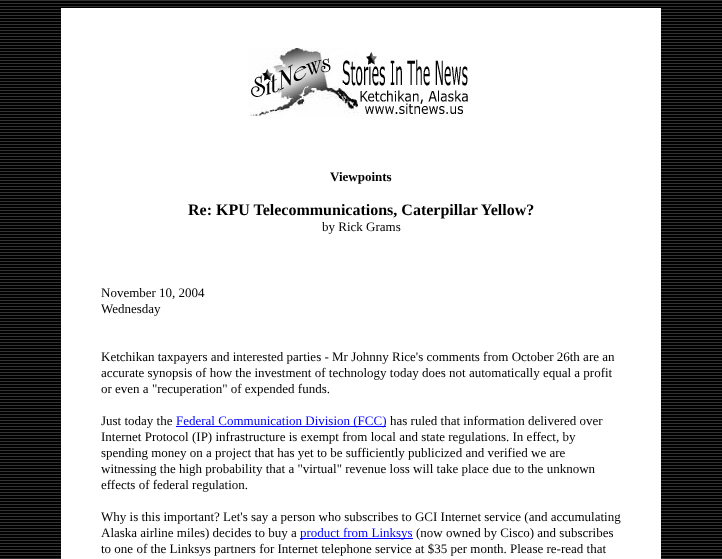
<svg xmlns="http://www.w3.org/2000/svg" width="722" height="559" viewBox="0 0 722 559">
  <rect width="100%" height="100%" fill="#fff"/>
  <image x="0" y="0" width="722" height="559" href="img/1.png"/>
  <path d="M61 8h600v551H61z" fill="#fff"/>
  <image x="248" y="48" width="223" height="71" href="img/2.png"/>
  <path d="M176 426h210v1H176z" fill="#00f"/>
  <path d="M300 538h113v1H300z" fill="#00f"/>
  <text x="330" y="181" font-family="Liberation Serif" font-size="13" font-weight="bold" fill="#000">Viewpoints</text>
  <text x="188" y="215" font-family="Liberation Serif" font-size="16" font-weight="bold" fill="#000">Re: KPU Telecommunications, Caterpillar Yellow?</text>
  <g font-family="Liberation Serif" font-size="13" fill="#000">
    <text x="322" y="231">by Rick Grams</text>
    <text x="101" y="297">November 10, 2004</text>
    <text x="101" y="313">Wednesday</text>
    <text x="101" y="361">Ketchikan taxpayers and interested parties - Mr Johnny Rice's comments from October 26th are an</text>
    <text x="101" y="377">accurate synopsis of how the investment of technology today does not automatically equal a profit</text>
    <text x="101" y="393">or even a "recuperation" of expended funds.</text>
    <text x="101" y="425">Just today the</text>
  </g>
  <text x="176" y="425" font-family="Liberation Serif" font-size="13" fill="#00f">Federal Communication Division (FCC)</text>
  <g font-family="Liberation Serif" font-size="13" fill="#000">
    <text x="390" y="425">has ruled that information delivered over</text>
    <text x="101" y="441">Internet Protocol (IP) infrastructure is exempt from local and state regulations. In effect, by</text>
    <text x="101" y="457">spending money on a project that has yet to be sufficiently publicized and verified we are</text>
    <text x="101" y="473">witnessing the high probability that a "virtual" revenue loss will take place due to the unknown</text>
    <text x="101" y="489">effects of federal regulation.</text>
    <text x="101" y="521">Why is this important? Let's say a person who subscribes to GCI Internet service (and accumulating</text>
    <text x="101" y="537">Alaska airline miles) decides to buy a</text>
  </g>
  <text x="300" y="537" font-family="Liberation Serif" font-size="13" fill="#00f">product from Linksys</text>
  <g font-family="Liberation Serif" font-size="13" fill="#000">
    <text x="416" y="537">(now owned by Cisco) and subscribes</text>
    <text x="101" y="553">to one of the Linksys partners for Internet telephone service at $35 per month. Please re-read that</text>
  </g>
</svg>
